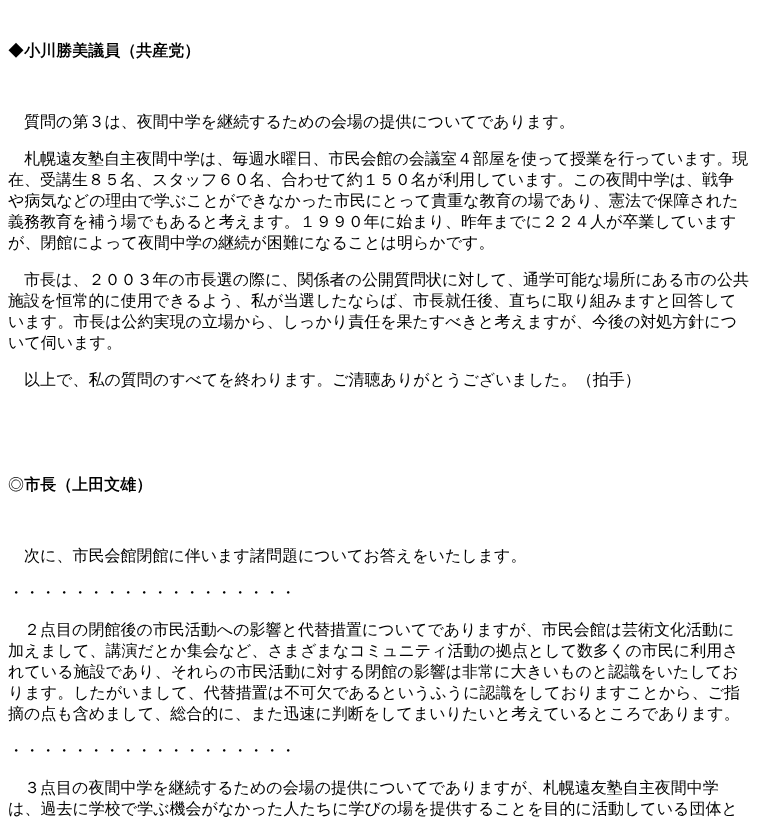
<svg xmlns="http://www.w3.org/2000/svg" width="758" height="821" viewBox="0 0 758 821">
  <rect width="100%" height="100%" fill="#fff"/>
  <text x="8" y="56" font-family="WenQuanYi Zen Hei" font-size="16" font-weight="500" fill="#000">◆</text>
  <text x="24" y="56" font-family="WenQuanYi Zen Hei" font-size="16" font-weight="bold" fill="#000">小川勝美議員（共産党）</text>
  <g font-family="WenQuanYi Zen Hei" font-size="16" font-weight="500" fill="#000">
    <text x="24" y="127">質問の第３は、夜間中学を継続するための会場の提供についてであります。</text>
    <text x="24" y="164">札幌遠友塾自主夜間中学は、毎週水曜日、市民会館の会議室４部屋を使って授業を行っています。現</text>
    <text x="8" y="185">在、受講生８５名、スタッフ６０名、合わせて約１５０名が利用しています。この夜間中学は、戦争</text>
    <text x="8" y="206">や病気などの理由で学ぶことができなかった市民にとって貴重な教育の場であり、憲法で保障された</text>
    <text x="8" y="227">義務教育を補う場でもあると考えます。１９９０年に始まり、昨年までに２２４人が卒業しています</text>
    <text x="8" y="248">が、閉館によって夜間中学の継続が困難になることは明らかです。</text>
    <text x="24" y="285">市長は、２００３年の市長選の際に、関係者の公開質問状に対して、通学可能な場所にある市の公共</text>
    <text x="8" y="306">施設を恒常的に使用できるよう、私が当選したならば、市長就任後、直ちに取り組みますと回答して</text>
    <text x="8" y="327">います。市長は公約実現の立場から、しっかり責任を果たすべきと考えますが、今後の対処方針につ</text>
    <text x="8" y="348">いて伺います。</text>
    <text x="24" y="385">以上で、私の質問のすべてを終わります。ご清聴ありがとうございました。（拍手）</text>
    <text x="8" y="490">◎</text>
  </g>
  <text x="24" y="490" font-family="WenQuanYi Zen Hei" font-size="16" font-weight="bold" fill="#000">市長（上田文雄）</text>
  <g font-family="WenQuanYi Zen Hei" font-size="16" font-weight="500" fill="#000">
    <text x="24" y="561">次に、市民会館閉館に伴います諸問題についてお答えをいたします。</text>
    <text x="8" y="598">・・・・・・・・・・・・・・・・・・</text>
    <text x="24" y="635">２点目の閉館後の市民活動への影響と代替措置についてでありますが、市民会館は芸術文化活動に</text>
    <text x="8" y="656">加えまして、講演だとか集会など、さまざまなコミュニティ活動の拠点として数多くの市民に利用さ</text>
    <text x="8" y="677">れている施設であり、それらの市民活動に対する閉館の影響は非常に大きいものと認識をいたしてお</text>
    <text x="8" y="698">ります。したがいまして、代替措置は不可欠であるというふうに認識をしておりますことから、ご指</text>
    <text x="8" y="719">摘の点も含めまして、総合的に、また迅速に判断をしてまいりたいと考えているところであります。</text>
    <text x="8" y="756">・・・・・・・・・・・・・・・・・・</text>
    <text x="24" y="793">３点目の夜間中学を継続するための会場の提供についてでありますが、札幌遠友塾自主夜間中学</text>
    <text x="8" y="814">は、過去に学校で学ぶ機会がなかった人たちに学びの場を提供することを目的に活動している団体と</text>
  </g>
</svg>
